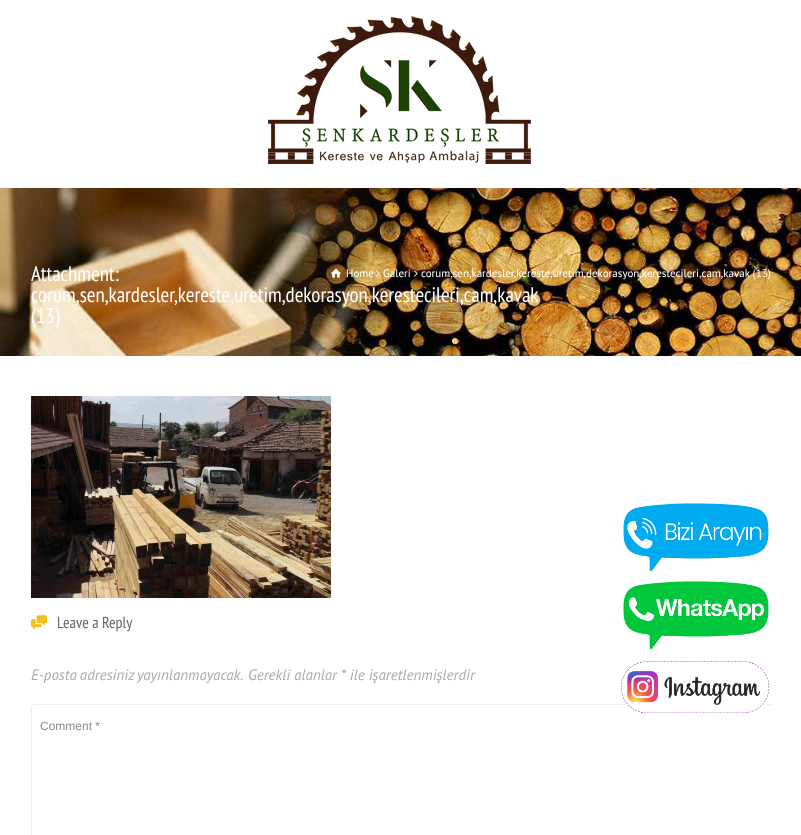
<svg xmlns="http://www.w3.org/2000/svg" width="801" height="835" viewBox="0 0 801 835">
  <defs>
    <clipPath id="clip1"><path d="M31 614h740v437H31z"/></clipPath>
  </defs>
  <rect width="100%" height="100%" fill="#fff"/>
  <image x="268" y="16" width="263" height="148" href="img/1.png"/>
  <image x="0" y="188" width="801" height="168" href="img/2.png"/>
  <image x="331" y="268" width="10" height="10" href="img/3.png"/>
  <image x="376" y="270" width="4" height="7" href="img/4.png"/>
  <image x="414" y="270" width="4" height="7" href="img/5.png"/>
  <image x="31" y="396" width="300" height="202" href="img/6.png"/>
  <image x="31" y="615" width="16" height="15" href="img/7.png"/>
  <g clip-path="url(#clip1)">
    <rect x="31.5" y="704.5" width="759" height="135" rx="3.5" fill="none" stroke="#eee"/>
  </g>
  <image x="623" y="503" width="146" height="69" href="img/8.png"/>
  <image x="623" y="581" width="146" height="69" href="img/9.png"/>
  <image x="621" y="661" width="149" height="52" href="img/10.png"/>
  <g font-family="PT Sans Narrow" font-size="21" fill="#fff">
    <text x="31" y="281">Attachment:</text>
    <text x="31" y="302">corum,sen,kardesler,kereste,uretim,dekorasyon,kerestecileri,cam,kavak</text>
    <text x="31" y="323">(13)</text>
  </g>
  <g font-family="PT Sans" font-size="11" fill="#fff">
    <text x="346" y="277">Home</text>
    <text x="383" y="277">Galeri</text>
    <text x="421" y="277">corum,sen,kardesler,kereste,uretim,dekorasyon,kerestecileri,cam,kavak (13)</text>
  </g>
  <text x="57" y="628" font-family="PT Sans Narrow" font-size="16" fill="#666">Leave a Reply</text>
  <g font-family="PT Sans" font-size="15" font-style="italic" fill="#aaa">
    <text x="31" y="680" word-spacing="-1">E-posta adresiniz yayınlanmayacak.</text>
    <text x="248" y="680">Gerekli alanlar * ile işaretlenmişlerdir</text>
  </g>
  <text x="40" y="730" font-family="Liberation Sans" font-size="12" fill="#8c8c8c">Comment *</text>
</svg>
